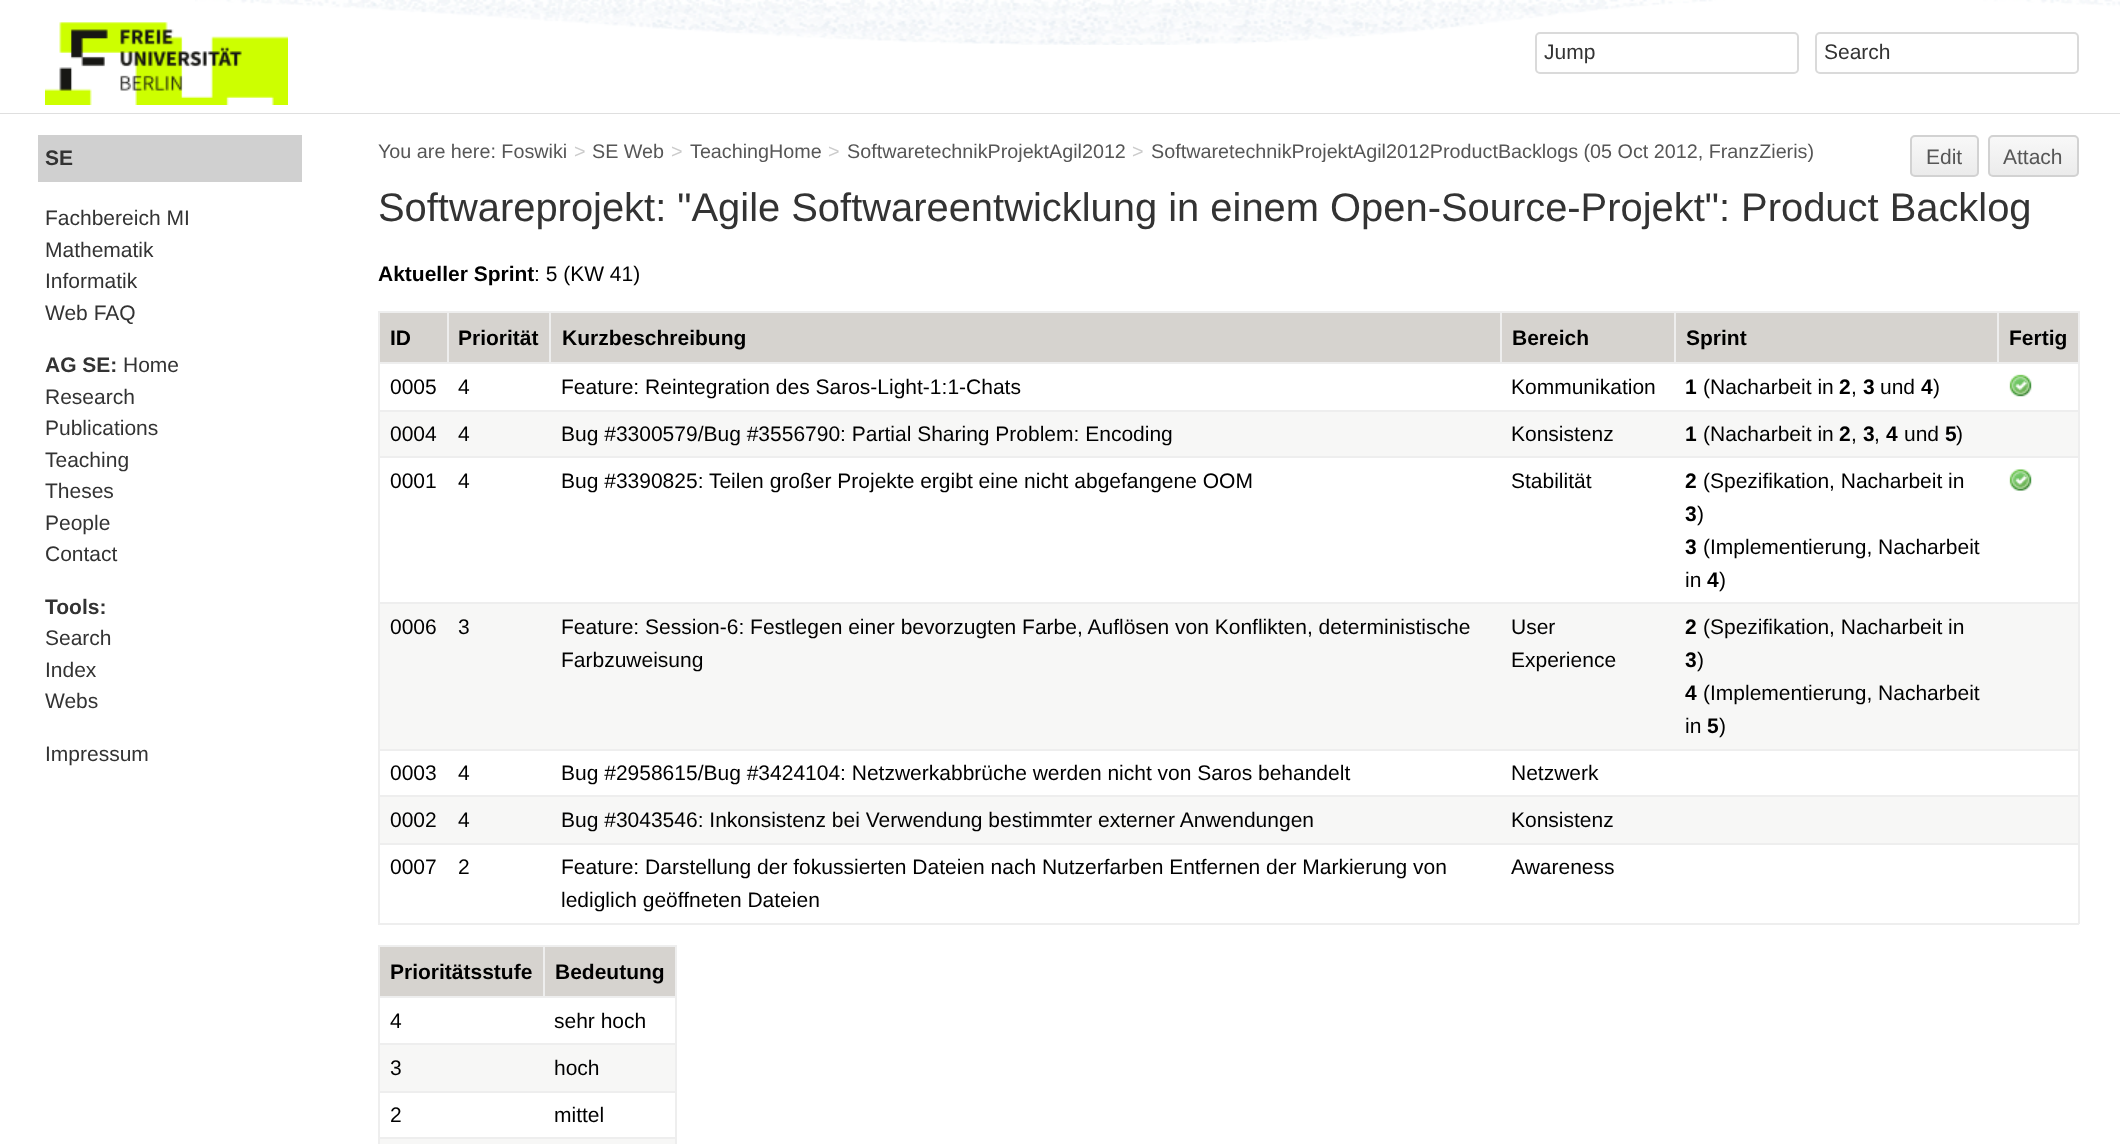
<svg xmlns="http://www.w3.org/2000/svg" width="2120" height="1144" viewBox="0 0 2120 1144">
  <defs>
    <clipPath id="clip1"><rect x="1910" y="135" width="69" height="42" rx="5"/></clipPath>
    <linearGradient id="g1" gradientUnits="userSpaceOnUse" x1="1944" y1="137" x2="1944" y2="176"><stop offset="0" stop-color="#f8f8f8"/><stop offset="1" stop-color="#ebebeb"/></linearGradient>
    <clipPath id="clip2"><rect x="1988" y="135" width="91" height="42" rx="5"/></clipPath>
    <linearGradient id="g2" gradientUnits="userSpaceOnUse" x1="2033" y1="137" x2="2033" y2="176"><stop offset="0" stop-color="#f8f8f8"/><stop offset="1" stop-color="#ebebeb"/></linearGradient>
  </defs>
  <rect width="100%" height="100%" fill="#dfdfdf"/>
  <path d="M0 0h2120v113H0z" fill="#fff"/>
  <image x="195" y="0" width="1925" height="45" href="img/1.png"/>
  <image x="45" y="22" width="243" height="83" href="img/2.png"/>
  <rect x="1536" y="33" width="262" height="40" rx="4" fill="none" stroke="#dadada" stroke-width="2"/>
  <rect x="1816" y="33" width="262" height="40" rx="4" fill="none" stroke="#dadada" stroke-width="2"/>
  <path d="M0 114h2120v1030H0z" fill="#fff"/>
  <path d="M38 135h264v47H38z" fill="#d0d0d0"/>
  <g clip-path="url(#clip1)">
    <path d="M1910 137h69v39H1910z" fill="url(#g1)"/>
  </g>
  <rect x="1911" y="136" width="67" height="40" rx="4" fill="none" stroke="#d2d2d2" stroke-width="2"/>
  <g clip-path="url(#clip2)">
    <path d="M1988 137h91v39H1988z" fill="url(#g2)"/>
  </g>
  <rect x="1989" y="136" width="89" height="40" rx="4" fill="none" stroke="#d2d2d2" stroke-width="2"/>
  <path d="M378 311h1701v2H378z" fill="#eee"/>
  <path d="M2078 311h2v613H2078z" fill="#eee"/>
  <path d="M378 923h1701v2H378z" fill="#eee"/>
  <path d="M378 311h2v613H378z" fill="#eee"/>
  <path d="M380 313h67v49H380z" fill="#d6d3cf"/>
  <path d="M449 313h100v49H449z" fill="#d6d3cf"/>
  <path d="M378 362h1701v2H378z" fill="#eee"/>
  <path d="M447 311h2v52H447z" fill="#eee"/>
  <path d="M551 313h949v49H551z" fill="#d6d3cf"/>
  <path d="M549 311h2v52H549z" fill="#eee"/>
  <path d="M1502 313h172v49H1502z" fill="#d6d3cf"/>
  <path d="M1500 311h2v52H1500z" fill="#eee"/>
  <path d="M1676 313h321v49H1676z" fill="#d6d3cf"/>
  <path d="M1674 311h2v52H1674z" fill="#eee"/>
  <path d="M1999 313h79v49H1999z" fill="#d6d3cf"/>
  <path d="M1997 311h2v52H1997z" fill="#eee"/>
  <image x="2009" y="374" width="23" height="23" href="img/3.png"/>
  <path d="M378 410h1701v2H378z" fill="#eee"/>
  <path d="M380 412h1698v44H380z" fill="#f7f7f6"/>
  <path d="M378 456h1701v2H378z" fill="#eee"/>
  <image x="2009" y="469" width="23" height="22" href="img/4.png"/>
  <path d="M378 602h1701v2H378z" fill="#eee"/>
  <path d="M380 604h1698v145H380z" fill="#f7f7f6"/>
  <path d="M378 749h1701v2H378z" fill="#eee"/>
  <path d="M378 795h1701v2H378z" fill="#eee"/>
  <path d="M380 797h1698v46H380z" fill="#f7f7f6"/>
  <path d="M378 843h1701v2H378z" fill="#eee"/>
  <path d="M378 945h299v2H378z" fill="#eee"/>
  <path d="M380 1139h297v5H380z" fill="#f7f7f6"/>
  <path d="M675 945h2v199H675z" fill="#eee"/>
  <path d="M378 945h2v199H378z" fill="#eee"/>
  <path d="M380 947h163v49H380z" fill="#d6d3cf"/>
  <path d="M545 947h130v49H545z" fill="#d6d3cf"/>
  <path d="M378 996h299v2H378z" fill="#eee"/>
  <path d="M543 945h2v53H543z" fill="#eee"/>
  <path d="M380 1045h295v46H380z" fill="#f7f7f6"/>
  <path d="M378 1043h299v2H378z" fill="#eee"/>
  <path d="M378 1091h299v2H378z" fill="#eee"/>
  <path d="M378 1137h299v2H378z" fill="#eee"/>
  <g font-family="Liberation Sans" font-size="21" fill="#333">
    <text x="1544" y="59">Jump</text>
    <text x="1824" y="59">Search</text>
  </g>
  <text x="45" y="165" font-family="Liberation Sans" font-size="21" font-weight="bold" fill="#333">SE</text>
  <g font-family="Liberation Sans" font-size="21" fill="#333">
    <text x="45" y="225">Fachbereich MI</text>
    <text x="45" y="257">Mathematik</text>
    <text x="45" y="288">Informatik</text>
    <text x="45" y="320">Web FAQ</text>
  </g>
  <text x="45" y="372" font-family="Liberation Sans" font-size="21" font-weight="bold" fill="#333">AG SE:</text>
  <g font-family="Liberation Sans" font-size="21" fill="#333">
    <text x="123" y="372">Home</text>
    <text x="45" y="404">Research</text>
    <text x="45" y="435">Publications</text>
    <text x="45" y="467">Teaching</text>
    <text x="45" y="498">Theses</text>
    <text x="45" y="530">People</text>
    <text x="45" y="561">Contact</text>
  </g>
  <text x="45" y="614" font-family="Liberation Sans" font-size="21" font-weight="bold" fill="#333">Tools:</text>
  <g font-family="Liberation Sans" font-size="21" fill="#333">
    <text x="45" y="645">Search</text>
    <text x="45" y="677">Index</text>
    <text x="45" y="708">Webs</text>
    <text x="45" y="761">Impressum</text>
  </g>
  <text x="378" y="158" font-family="Liberation Sans" font-size="19.75" fill="#565656">You are here: Foswiki</text>
  <text x="574" y="158" font-family="Liberation Sans" font-size="19.75" fill="#ccc">&gt;</text>
  <text x="592" y="158" font-family="Liberation Sans" font-size="19.75" fill="#565656">SE Web</text>
  <text x="671" y="158" font-family="Liberation Sans" font-size="19.75" fill="#ccc">&gt;</text>
  <text x="690" y="158" font-family="Liberation Sans" font-size="19.75" fill="#565656">TeachingHome</text>
  <text x="828" y="158" font-family="Liberation Sans" font-size="19.75" fill="#ccc">&gt;</text>
  <text x="847" y="158" font-family="Liberation Sans" font-size="19.75" fill="#565656">SoftwaretechnikProjektAgil2012</text>
  <text x="1132" y="158" font-family="Liberation Sans" font-size="19.75" fill="#ccc">&gt;</text>
  <text x="1151" y="158" font-family="Liberation Sans" font-size="19.75" fill="#565656">SoftwaretechnikProjektAgil2012ProductBacklogs (05 Oct 2012, FranzZieris)</text>
  <g font-family="Liberation Sans" font-size="21" fill="#565656">
    <text x="1926" y="164">Edit</text>
    <text x="2003" y="164">Attach</text>
  </g>
  <text x="378" y="221" font-family="Liberation Sans" font-size="39.9" fill="#333">Softwareprojekt: "Agile Softwareentwicklung in einem Open-Source-Projekt": Product Backlog</text>
  <text x="378" y="281" font-family="Liberation Sans" font-size="21" font-weight="bold" fill="#000">Aktueller Sprint</text>
  <text x="534" y="281" font-family="Liberation Sans" font-size="21" fill="#000">: 5 (KW 41)</text>
  <g font-family="Liberation Sans" font-size="21" font-weight="bold" fill="#000">
    <text x="390" y="345">ID</text>
    <text x="458" y="345">Priorität</text>
    <text x="562" y="345">Kurzbeschreibung</text>
    <text x="1512" y="345">Bereich</text>
    <text x="1686" y="345">Sprint</text>
    <text x="2009" y="345">Fertig</text>
  </g>
  <g font-family="Liberation Sans" font-size="21" fill="#000">
    <text x="390" y="394">0005</text>
    <text x="458" y="394">4</text>
    <text x="561" y="394">Feature: Reintegration des Saros-Light-1:1-Chats</text>
    <text x="1511" y="394">Kommunikation</text>
  </g>
  <text x="1685" y="394" font-family="Liberation Sans" font-size="21" font-weight="bold" fill="#000">1</text>
  <text x="1703" y="394" font-family="Liberation Sans" font-size="21" fill="#000">(Nacharbeit in</text>
  <text x="1839" y="394" font-family="Liberation Sans" font-size="21" font-weight="bold" fill="#000">2</text>
  <text x="1851" y="394" font-family="Liberation Sans" font-size="21" fill="#000">,</text>
  <text x="1863" y="394" font-family="Liberation Sans" font-size="21" font-weight="bold" fill="#000">3</text>
  <text x="1880" y="394" font-family="Liberation Sans" font-size="21" fill="#000">und</text>
  <text x="1921" y="394" font-family="Liberation Sans" font-size="21" font-weight="bold" fill="#000">4</text>
  <g font-family="Liberation Sans" font-size="21" fill="#000">
    <text x="1933" y="394">)</text>
    <text x="390" y="441">0004</text>
    <text x="458" y="441">4</text>
    <text x="561" y="441">Bug #3300579/Bug #3556790: Partial Sharing Problem: Encoding</text>
    <text x="1511" y="441">Konsistenz</text>
  </g>
  <text x="1685" y="441" font-family="Liberation Sans" font-size="21" font-weight="bold" fill="#000">1</text>
  <text x="1703" y="441" font-family="Liberation Sans" font-size="21" fill="#000">(Nacharbeit in</text>
  <text x="1839" y="441" font-family="Liberation Sans" font-size="21" font-weight="bold" fill="#000">2</text>
  <text x="1851" y="441" font-family="Liberation Sans" font-size="21" fill="#000">,</text>
  <text x="1863" y="441" font-family="Liberation Sans" font-size="21" font-weight="bold" fill="#000">3</text>
  <text x="1874" y="441" font-family="Liberation Sans" font-size="21" fill="#000">,</text>
  <text x="1886" y="441" font-family="Liberation Sans" font-size="21" font-weight="bold" fill="#000">4</text>
  <text x="1904" y="441" font-family="Liberation Sans" font-size="21" fill="#000">und</text>
  <text x="1945" y="441" font-family="Liberation Sans" font-size="21" font-weight="bold" fill="#000">5</text>
  <g font-family="Liberation Sans" font-size="21" fill="#000">
    <text x="1956" y="441">)</text>
    <text x="390" y="488">0001</text>
    <text x="458" y="488">4</text>
    <text x="561" y="488">Bug #3390825: Teilen großer Projekte ergibt eine nicht abgefangene OOM</text>
    <text x="1511" y="488">Stabilität</text>
  </g>
  <text x="1685" y="488" font-family="Liberation Sans" font-size="21" font-weight="bold" fill="#000">2</text>
  <text x="1703" y="488" font-family="Liberation Sans" font-size="21" fill="#000">(Spezifikation, Nacharbeit in</text>
  <text x="1685" y="521" font-family="Liberation Sans" font-size="21" font-weight="bold" fill="#000">3</text>
  <text x="1697" y="521" font-family="Liberation Sans" font-size="21" fill="#000">)</text>
  <text x="1685" y="554" font-family="Liberation Sans" font-size="21" font-weight="bold" fill="#000">3</text>
  <g font-family="Liberation Sans" font-size="21" fill="#000">
    <text x="1703" y="554">(Implementierung, Nacharbeit</text>
    <text x="1685" y="587">in</text>
  </g>
  <text x="1707" y="587" font-family="Liberation Sans" font-size="21" font-weight="bold" fill="#000">4</text>
  <g font-family="Liberation Sans" font-size="21" fill="#000">
    <text x="1719" y="587">)</text>
    <text x="390" y="634">0006</text>
    <text x="458" y="634">3</text>
    <text x="561" y="634">Feature: Session-6: Festlegen einer bevorzugten Farbe, Auflösen von Konflikten, deterministische</text>
    <text x="561" y="667">Farbzuweisung</text>
    <text x="1511" y="634">User</text>
    <text x="1511" y="667">Experience</text>
  </g>
  <text x="1685" y="634" font-family="Liberation Sans" font-size="21" font-weight="bold" fill="#000">2</text>
  <text x="1703" y="634" font-family="Liberation Sans" font-size="21" fill="#000">(Spezifikation, Nacharbeit in</text>
  <text x="1685" y="667" font-family="Liberation Sans" font-size="21" font-weight="bold" fill="#000">3</text>
  <text x="1697" y="667" font-family="Liberation Sans" font-size="21" fill="#000">)</text>
  <text x="1685" y="700" font-family="Liberation Sans" font-size="21" font-weight="bold" fill="#000">4</text>
  <g font-family="Liberation Sans" font-size="21" fill="#000">
    <text x="1703" y="700">(Implementierung, Nacharbeit</text>
    <text x="1685" y="733">in</text>
  </g>
  <text x="1707" y="733" font-family="Liberation Sans" font-size="21" font-weight="bold" fill="#000">5</text>
  <g font-family="Liberation Sans" font-size="21" fill="#000">
    <text x="1719" y="733">)</text>
    <text x="390" y="780">0003</text>
    <text x="458" y="780">4</text>
    <text x="561" y="780">Bug #2958615/Bug #3424104: Netzwerkabbrüche werden nicht von Saros behandelt</text>
    <text x="1511" y="780">Netzwerk</text>
    <text x="390" y="827">0002</text>
    <text x="458" y="827">4</text>
    <text x="561" y="827">Bug #3043546: Inkonsistenz bei Verwendung bestimmter externer Anwendungen</text>
    <text x="1511" y="827">Konsistenz</text>
    <text x="390" y="874">0007</text>
    <text x="458" y="874">2</text>
    <text x="561" y="874">Feature: Darstellung der fokussierten Dateien nach Nutzerfarben Entfernen der Markierung von</text>
    <text x="561" y="907">lediglich geöffneten Dateien</text>
    <text x="1511" y="874">Awareness</text>
  </g>
  <g font-family="Liberation Sans" font-size="21" font-weight="bold" fill="#000">
    <text x="390" y="979">Prioritätsstufe</text>
    <text x="555" y="979">Bedeutung</text>
  </g>
  <g font-family="Liberation Sans" font-size="21" fill="#000">
    <text x="390" y="1028">4</text>
    <text x="554" y="1028">sehr hoch</text>
    <text x="390" y="1075">3</text>
    <text x="554" y="1075">hoch</text>
    <text x="390" y="1122">2</text>
    <text x="554" y="1122">mittel</text>
  </g>
</svg>
